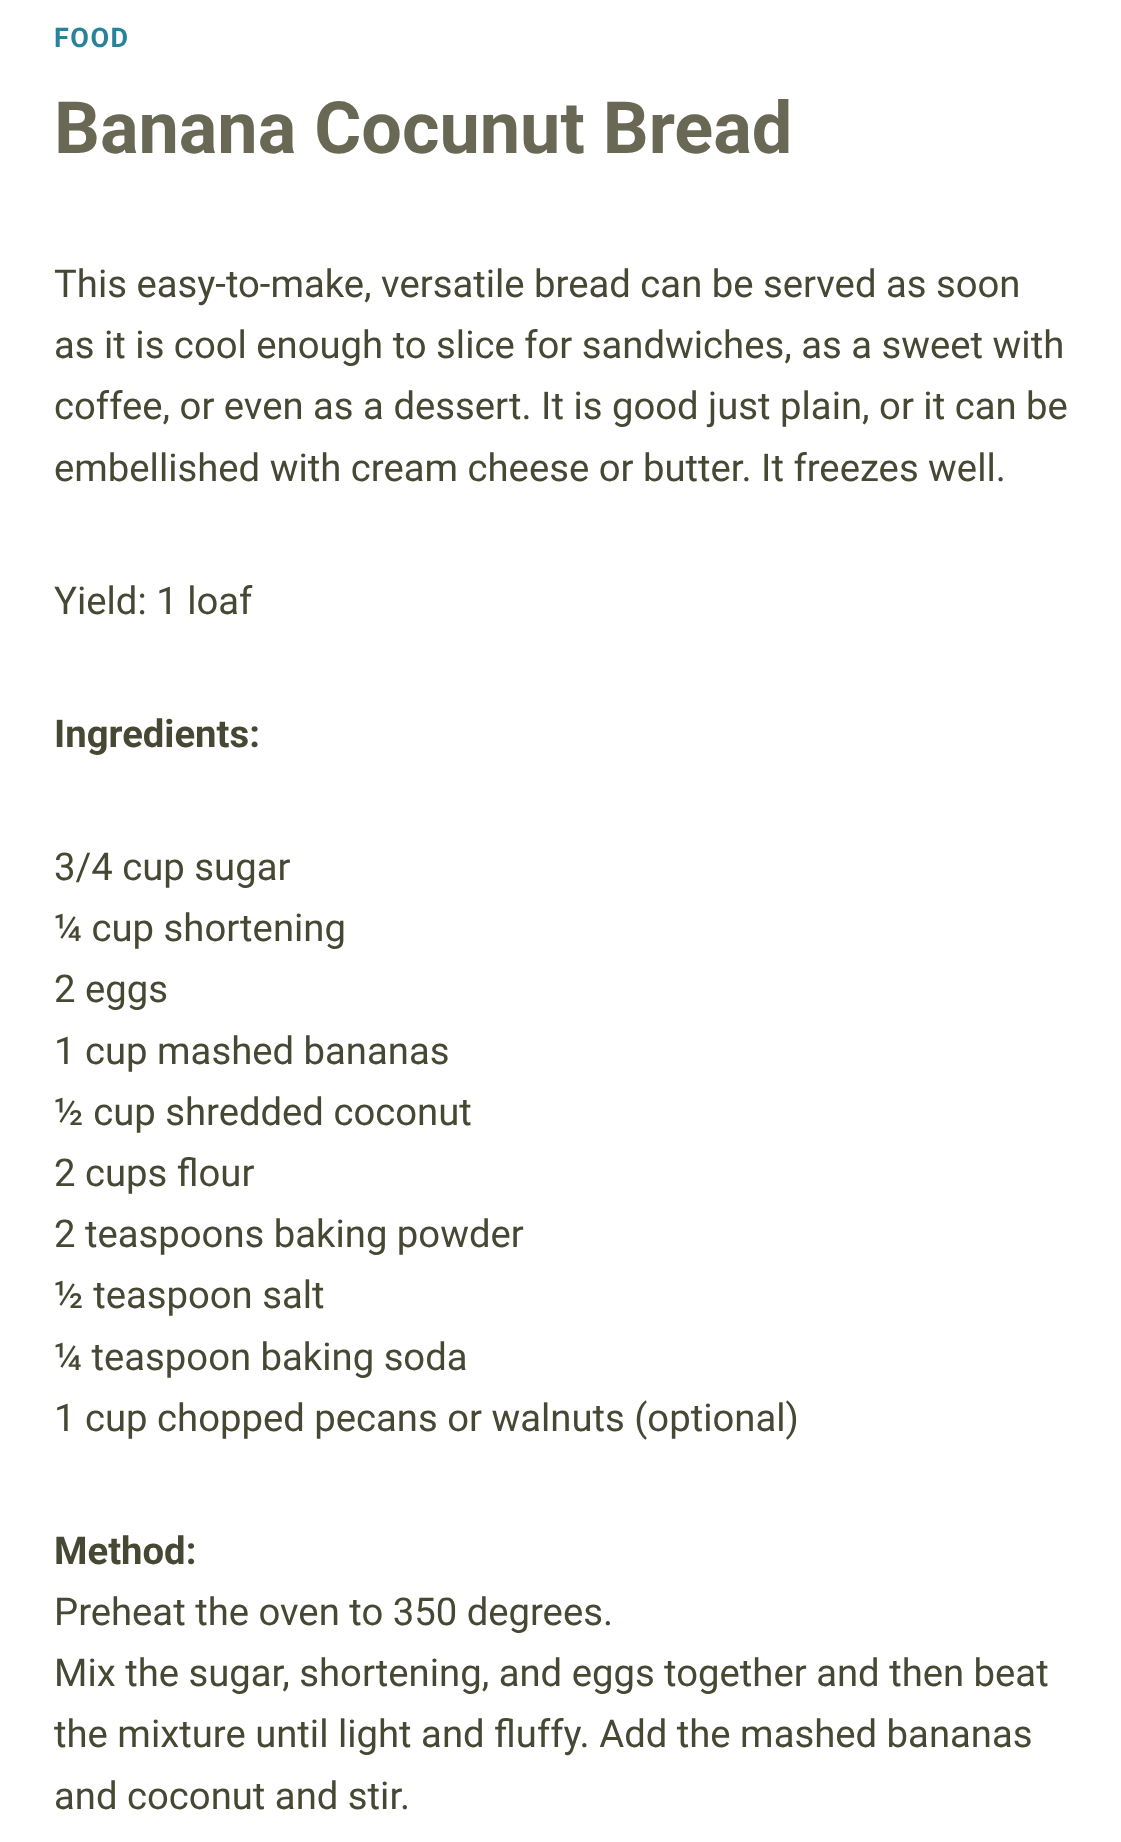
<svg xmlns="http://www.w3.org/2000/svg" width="1121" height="1842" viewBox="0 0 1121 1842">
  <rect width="100%" height="100%" fill="#fff"/>
  <text x="54" y="47" font-family="Roboto" font-size="27" font-weight="bold" letter-spacing="1.5" fill="#288299">FOOD</text>
  <text x="54" y="153" font-family="Roboto" font-size="72" font-weight="bold" fill="#686855">Banana Cocunut Bread</text>
  <g font-family="Roboto" font-size="38.25" fill="#474834">
    <text x="54" y="297">This easy-to-make, versatile bread can be served as soon</text>
    <text x="54" y="358">as it is cool enough to slice for sandwiches, as a sweet with</text>
    <text x="54" y="419">coffee, or even as a dessert. It is good just plain, or it can be</text>
    <text x="54" y="481">embellished with cream cheese or butter. It freezes well.</text>
    <text x="54" y="614">Yield: 1 loaf</text>
  </g>
  <text x="54" y="747" font-family="Roboto" font-size="38.25" font-weight="bold" fill="#474834">Ingredients:</text>
  <g font-family="Roboto" font-size="38.25" fill="#474834">
    <text x="54" y="880">3/4 cup sugar</text>
    <text x="54" y="941">¼ cup shortening</text>
    <text x="54" y="1002">2 eggs</text>
    <text x="54" y="1064">1 cup mashed bananas</text>
    <text x="54" y="1125">½ cup shredded coconut</text>
    <text x="54" y="1186">2 cups flour</text>
    <text x="54" y="1247">2 teaspoons baking powder</text>
    <text x="54" y="1308">½ teaspoon salt</text>
    <text x="54" y="1370">¼ teaspoon baking soda</text>
    <text x="54" y="1431">1 cup chopped pecans or walnuts (optional)</text>
  </g>
  <text x="54" y="1564" font-family="Roboto" font-size="38.25" font-weight="bold" fill="#474834">Method:</text>
  <g font-family="Roboto" font-size="38.25" fill="#474834">
    <text x="54" y="1625">Preheat the oven to 350 degrees.</text>
    <text x="54" y="1686">Mix the sugar, shortening, and eggs together and then beat</text>
    <text x="54" y="1747">the mixture until light and fluffy. Add the mashed bananas</text>
    <text x="54" y="1809">and coconut and stir.</text>
  </g>
</svg>
